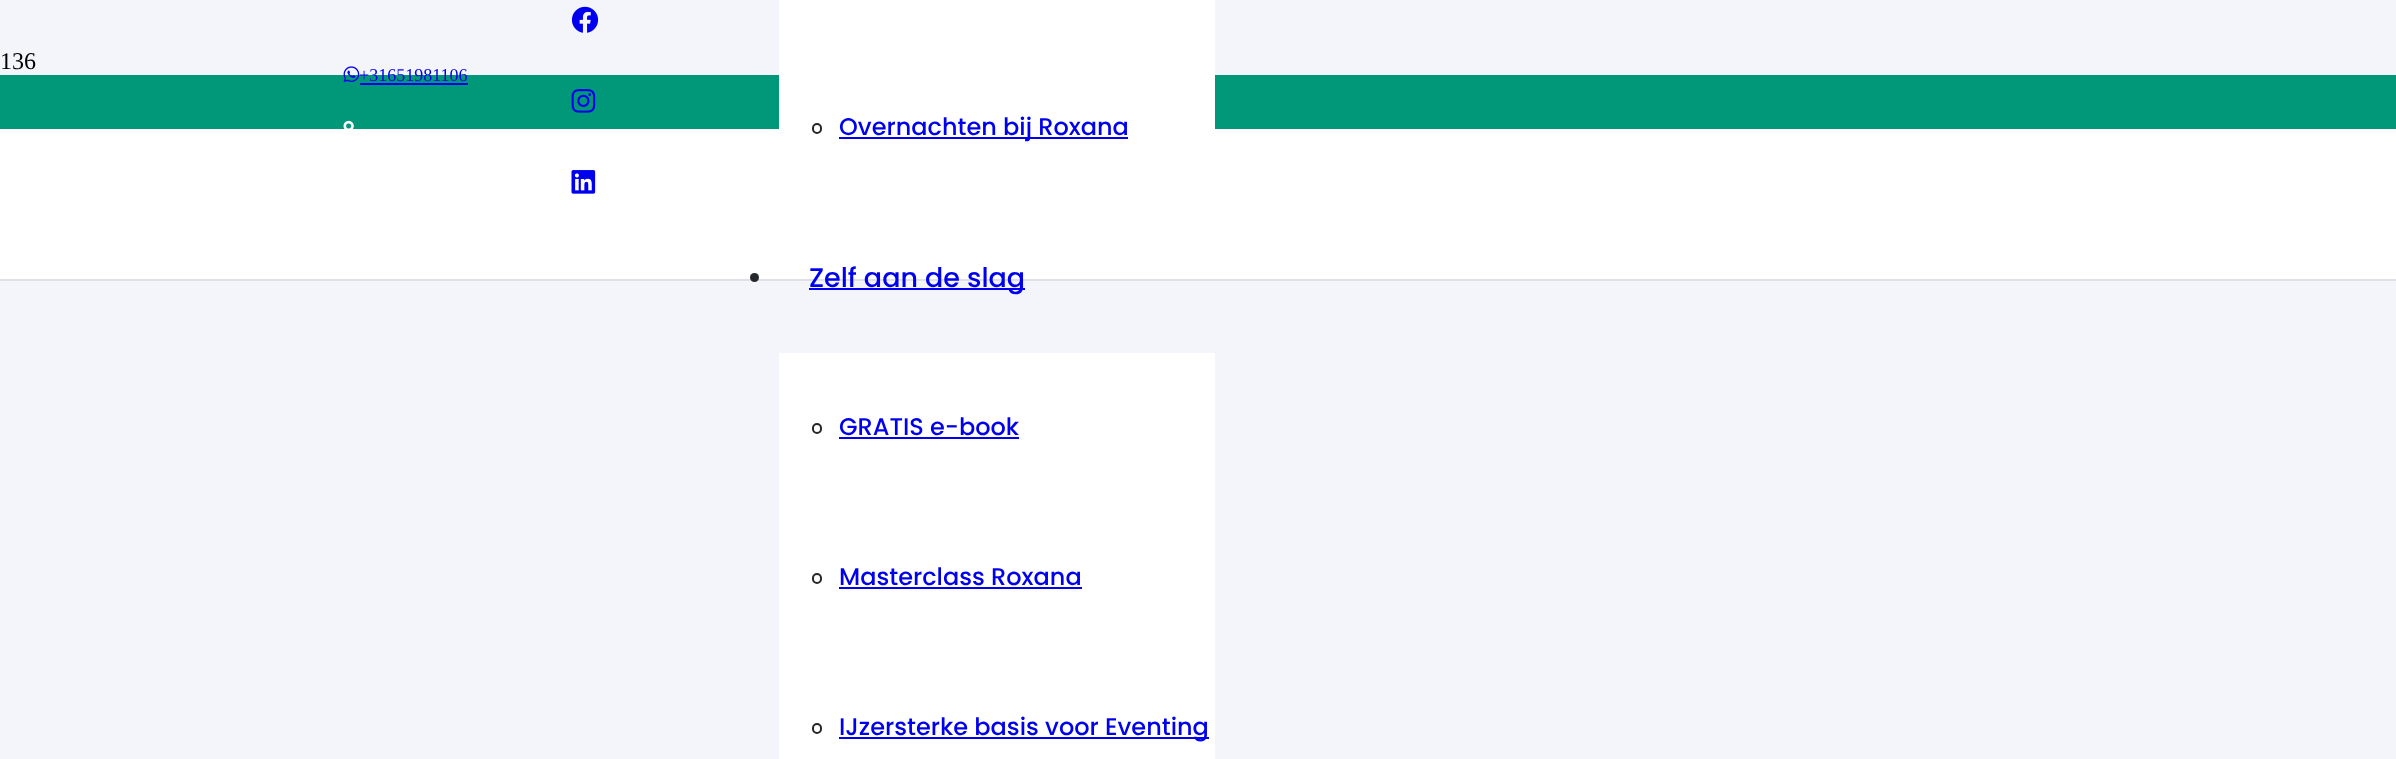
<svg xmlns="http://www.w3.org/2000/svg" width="2396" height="759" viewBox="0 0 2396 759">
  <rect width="100%" height="100%" fill="#f3f5fb"/>
  <path d="M0 75h2396v54H0z" fill="#009878"/>
  <image x="343" y="66" width="17" height="17" href="img/1.png"/>
  <path d="M360 83h108v2H360z" fill="#00e"/>
  <image x="343" y="120" width="11" height="9" href="img/2.png"/>
  <image x="571" y="6" width="28" height="27" href="img/3.png"/>
  <image x="571" y="89" width="25" height="24" href="img/4.png"/>
  <path d="M0 129h2396v150H0z" fill="#fff"/>
  <image x="571" y="170" width="25" height="24" href="img/5.png"/>
  <path d="M0 279h2396v2H0z" fill="#e0e1e7"/>
  <path d="M779 0h436v129H779z" fill="#fff"/>
  <rect x="813" y="124" width="8" height="9" rx="4" fill="none" stroke="#25282b" stroke-width="2"/>
  <path d="M839 137h289v2H839z" fill="#00e"/>
  <circle cx="754.5" cy="277.5" r="4.5" fill="#25282b"/>
  <path d="M809 288h216v2H809z" fill="#00e"/>
  <path d="M779 353h436v406H779z" fill="#fff"/>
  <rect x="813" y="424" width="8" height="9" rx="4" fill="none" stroke="#25282b" stroke-width="2"/>
  <path d="M839 437h180v2H839z" fill="#00e"/>
  <rect x="813" y="574" width="8" height="9" rx="4" fill="none" stroke="#25282b" stroke-width="2"/>
  <path d="M839 587h243v2H839z" fill="#00e"/>
  <rect x="813" y="724" width="8" height="9" rx="4" fill="none" stroke="#25282b" stroke-width="2"/>
  <path d="M839 737h370v2H839z" fill="#00e"/>
  <text x="0" y="69" font-family="Liberation Serif" font-size="24" fill="#000">136</text>
  <text x="359" y="81" font-family="Liberation Serif" font-size="18" fill="#00e">+31651981106</text>
  <text x="839" y="135" font-family="Poppins" font-size="24" font-weight="500" fill="#00e">Overnachten bij Roxana</text>
  <text x="809" y="287" font-family="Poppins" font-size="27" font-weight="500" fill="#00e">Zelf aan de slag</text>
  <g font-family="Poppins" font-size="24" font-weight="500" fill="#00e">
    <text x="839" y="435">GRATIS e-book</text>
    <text x="839" y="585">Masterclass Roxana</text>
    <text x="839" y="735">IJzersterke basis voor Eventing</text>
  </g>
</svg>
